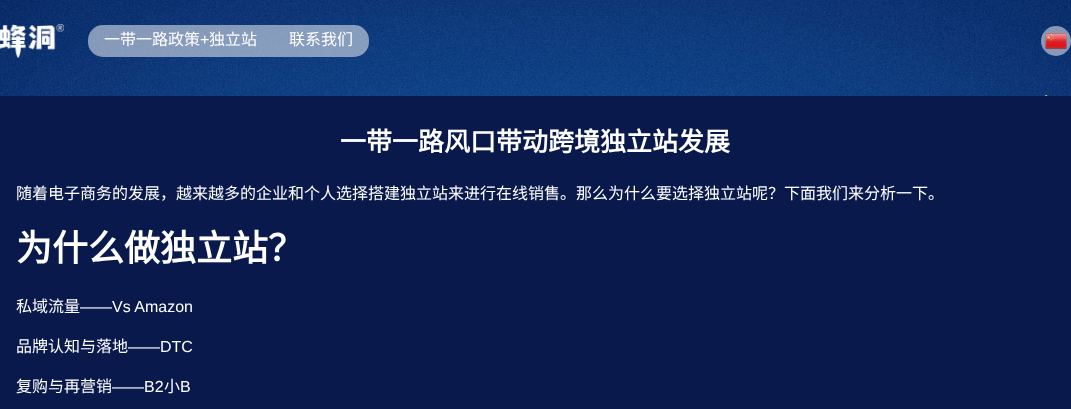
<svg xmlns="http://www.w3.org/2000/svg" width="1071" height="409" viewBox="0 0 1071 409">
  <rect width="100%" height="100%" fill="#fff"/>
  <image x="0" y="0" width="1071" height="96" href="img/1.png"/>
  <image x="0" y="24" width="64" height="34" href="img/2.png"/>
  <rect x="88" y="25" width="281" height="32" rx="15" fill="#ffffff80"/>
  <circle cx="1056" cy="41" r="15" fill="#ffffff80"/>
  <image x="1045" y="33" width="22" height="16" href="img/3.png"/>
  <path d="M0 96h1071v313H0z" fill="#09194c"/>
  <text x="104" y="45" font-family="Noto Sans CJK SC" font-size="16" fill="#fff">一带一路政策</text>
  <text x="200" y="45" font-family="Liberation Sans" font-size="16" fill="#fff">+</text>
  <g font-family="Noto Sans CJK SC" font-size="16" fill="#fff">
    <text x="209" y="45">独立站</text>
    <text x="289" y="45">联系我们</text>
  </g>
  <text x="340" y="151" font-family="Noto Sans CJK SC" font-size="26" font-weight="bold" fill="#fff">一带一路风口带动跨境独立站发展</text>
  <text x="16" y="199" font-family="Noto Sans CJK SC" font-size="16" fill="#fff">随着电子商务的发展，越来越多的企业和个人选择搭建独立站来进行在线销售。那么为什么要选择独立站呢？下面我们来分析一下。</text>
  <text x="16" y="261" font-family="Noto Sans CJK SC" font-size="36" font-weight="bold" fill="#fff">为什么做独立站？</text>
  <text x="16" y="312" font-family="Noto Sans CJK SC" font-size="16" fill="#fff">私域流量</text>
  <text x="80" y="312" font-family="Liberation Sans" font-size="16" fill="#fff">——Vs Amazon</text>
  <text x="16" y="352" font-family="Noto Sans CJK SC" font-size="16" fill="#fff">品牌认知与落地</text>
  <text x="128" y="352" font-family="Liberation Sans" font-size="16" fill="#fff">——DTC</text>
  <text x="16" y="392" font-family="Noto Sans CJK SC" font-size="16" fill="#fff">复购与再营销</text>
  <text x="112" y="392" font-family="Liberation Sans" font-size="16" fill="#fff">——B2</text>
  <text x="164" y="392" font-family="Noto Sans CJK SC" font-size="16" fill="#fff">小</text>
  <text x="180" y="392" font-family="Liberation Sans" font-size="16" fill="#fff">B</text>
</svg>
